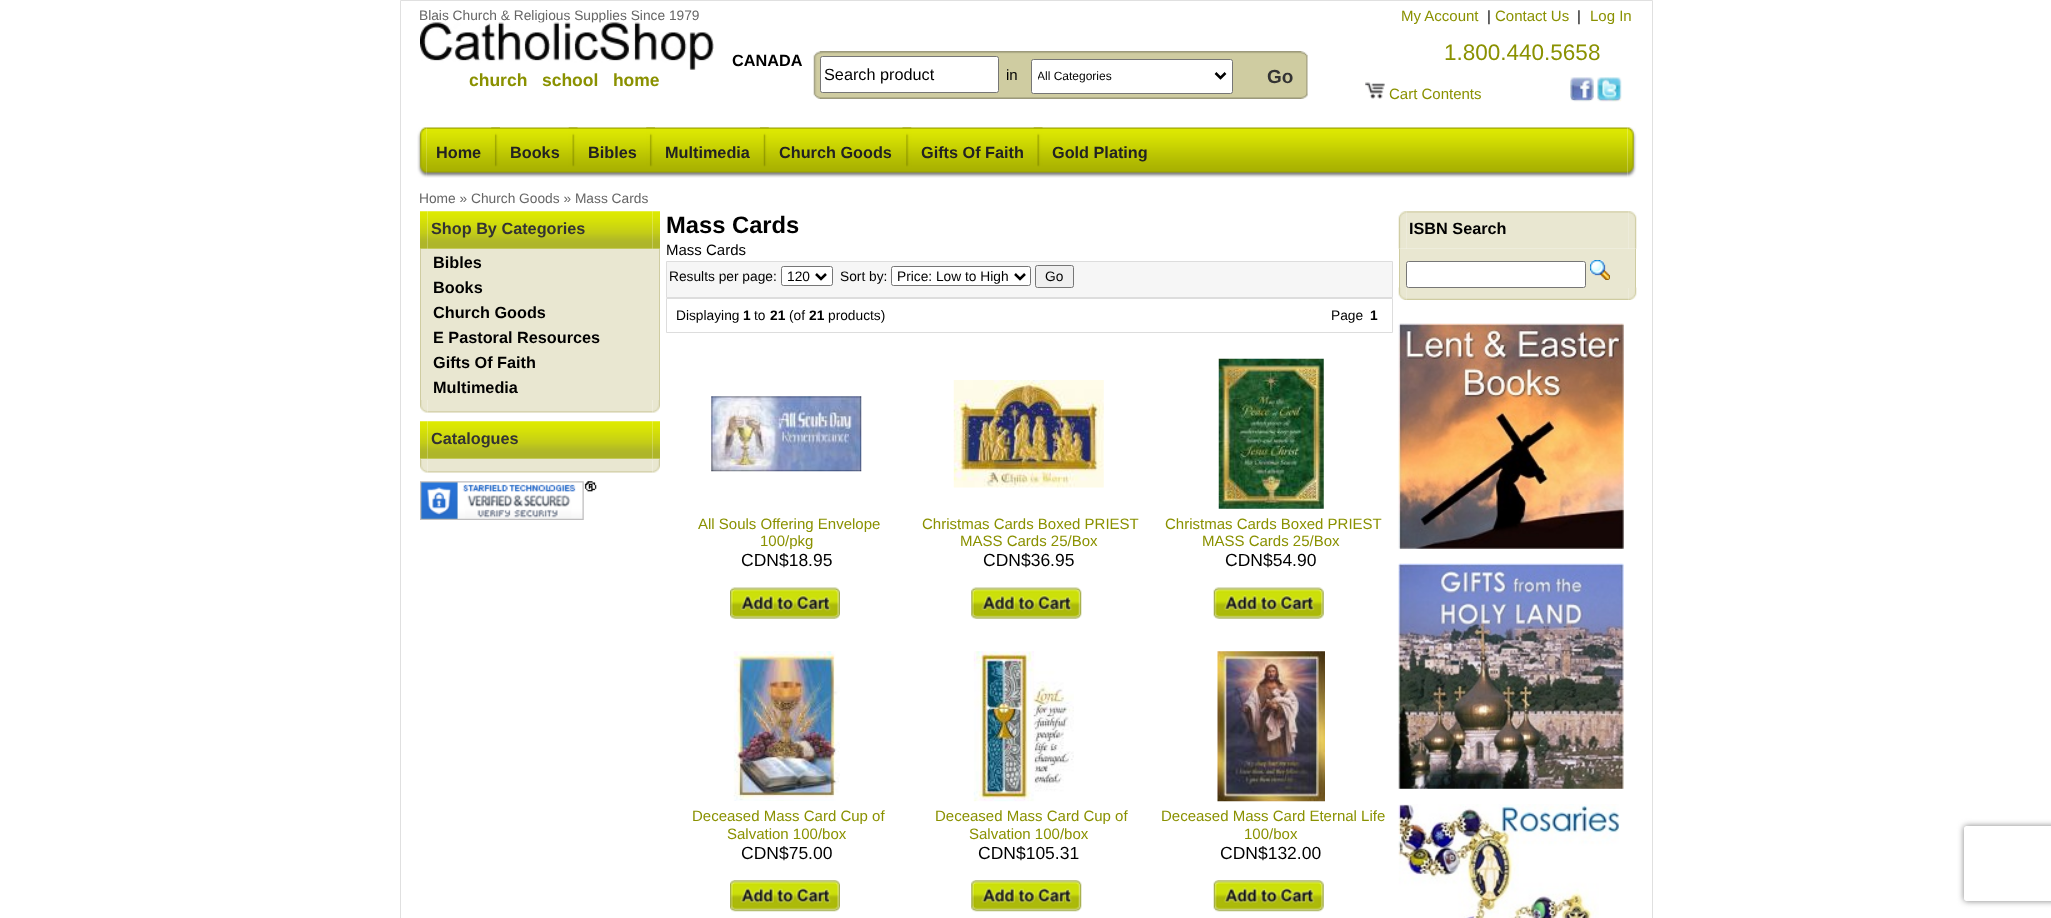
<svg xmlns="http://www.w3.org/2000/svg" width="2051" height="918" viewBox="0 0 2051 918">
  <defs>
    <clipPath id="clip1"><path d="M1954 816H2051V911H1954ZM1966.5 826H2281.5C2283 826 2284 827 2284 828.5V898.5C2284 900 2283 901 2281.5 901H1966.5C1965 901 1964 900 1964 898.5V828.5C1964 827 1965 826 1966.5 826Z" clip-rule="evenodd"/></clipPath>
    <clipPath id="clip2"><path d="M1038 68h173v16H1038z"/></clipPath>
  </defs>
  <rect width="100%" height="100%" fill="#fff"/>
  <path d="M400.5 0.5h1252v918H400.5z" fill="none" stroke="#e0e0e0"/>
  <image x="820" y="51" width="488" height="48" href="img/2.png"/>
  <image x="813" y="51" width="489" height="48" href="img/3.png"/>
  <rect x="820.5" y="56.5" width="178" height="36" rx="2" fill="#fff" stroke="#767676"/>
  <rect x="1031.5" y="59.5" width="201" height="34" rx="2" fill="#fff" stroke="#767676"/>
  <path d="M1215.5 73L1220.5 78L1225.5 73" fill="none" stroke="#000" stroke-width="2.5"/>
  <image x="1365" y="82" width="20" height="17" href="img/4.png"/>
  <image x="1570" y="77" width="24" height="25" href="img/5.png"/>
  <image x="1597" y="77" width="25" height="25" href="img/6.png"/>
  <image x="417" y="127" width="10" height="51" href="img/7.png"/>
  <image x="426" y="127" width="1202" height="51" href="img/8.png"/>
  <image x="491" y="127" width="9" height="40" href="img/9.png"/>
  <image x="568" y="127" width="10" height="40" href="img/10.png"/>
  <image x="646" y="127" width="9" height="40" href="img/9.png"/>
  <image x="760" y="127" width="9" height="40" href="img/11.png"/>
  <image x="902" y="127" width="10" height="40" href="img/12.png"/>
  <image x="1033" y="127" width="10" height="40" href="img/13.png"/>
  <image x="1627" y="127" width="10" height="51" href="img/14.png"/>
  <image x="427" y="211" width="226" height="38" href="img/16.png"/>
  <image x="420" y="211" width="8" height="38" href="img/15.png"/>
  <image x="652" y="211" width="8" height="38" href="img/17.png"/>
  <path d="M421 249h238v151H421z" fill="#e9e7d1"/>
  <path d="M659 249h1v151H659z" fill="#cfcca1"/>
  <path d="M420 249h1v151H420z" fill="#cfcca1"/>
  <image x="427" y="400" width="226" height="13" href="img/19.png"/>
  <image x="420" y="400" width="8" height="13" href="img/18.png"/>
  <image x="652" y="400" width="8" height="13" href="img/20.png"/>
  <image x="427" y="421" width="226" height="38" href="img/21.png"/>
  <image x="420" y="421" width="8" height="38" href="img/15.png"/>
  <image x="652" y="421" width="8" height="38" href="img/17.png"/>
  <path d="M420 459h240v1H420z" fill="#e9e7d1"/>
  <path d="M659 459h1v1H659z" fill="#cfcca1"/>
  <path d="M420 459h1v1H420z" fill="#cfcca1"/>
  <image x="427" y="460" width="226" height="13" href="img/19.png"/>
  <image x="420" y="460" width="8" height="13" href="img/18.png"/>
  <image x="652" y="460" width="8" height="13" href="img/20.png"/>
  <image x="420" y="481" width="177" height="39" href="img/22.png"/>
  <path d="M666.5 261.5h726v36H666.5z" fill="#f6f6f6" stroke="#ddd"/>
  <rect x="781.5" y="266.5" width="51" height="19" rx="2" fill="#fff" stroke="#767676"/>
  <path d="M816 274L821 279L826 274" fill="none" stroke="#000" stroke-width="2.5"/>
  <rect x="891.5" y="266.5" width="139" height="19" rx="2" fill="#fff" stroke="#767676"/>
  <path d="M1015 274L1020 279L1025 274" fill="none" stroke="#000" stroke-width="2.5"/>
  <rect x="1035.5" y="265.5" width="38" height="22" rx="2" fill="#efefef" stroke="#767676"/>
  <path d="M666.5 298.5h726v34H666.5z" fill="none" stroke="#ddd"/>
  <image x="711" y="396" width="151" height="76" href="img/23.png"/>
  <image x="730" y="587" width="110" height="32" href="img/24.png"/>
  <image x="953" y="380" width="151" height="108" href="img/25.png"/>
  <image x="971" y="587" width="111" height="32" href="img/26.png"/>
  <image x="1218" y="358" width="106" height="151" href="img/27.png"/>
  <image x="1213" y="587" width="111" height="32" href="img/28.png"/>
  <image x="733" y="651" width="107" height="150" href="img/29.png"/>
  <image x="730" y="880" width="110" height="32" href="img/30.png"/>
  <image x="973" y="651" width="101" height="151" href="img/31.png"/>
  <image x="971" y="880" width="111" height="32" href="img/32.png"/>
  <image x="1217" y="651" width="108" height="151" href="img/33.png"/>
  <image x="1213" y="880" width="111" height="32" href="img/34.png"/>
  <image x="1406" y="211" width="223" height="38" href="img/36.png"/>
  <image x="1398" y="211" width="9" height="38" href="img/35.png"/>
  <image x="1628" y="211" width="9" height="38" href="img/37.png"/>
  <path d="M1400 249h235v39H1400z" fill="#e9e7d1"/>
  <path d="M1635 249h1v39H1635z" fill="#cfcca1"/>
  <path d="M1399 249h1v39H1399z" fill="#cfcca1"/>
  <image x="1406" y="288" width="223" height="12" href="img/40.png"/>
  <image x="1398" y="287" width="9" height="13" href="img/39.png"/>
  <rect x="1406.5" y="261.5" width="179" height="26" rx="2" fill="#fff" stroke="#767676"/>
  <image x="1590" y="260" width="20" height="20" href="img/38.png"/>
  <image x="1628" y="287" width="9" height="13" href="img/41.png"/>
  <image x="1398" y="323" width="226" height="226" href="img/42.png"/>
  <image x="1398" y="563" width="226" height="226" href="img/43.png"/>
  <image x="1398" y="804" width="222" height="114" href="img/44.png"/>
  <g clip-path="url(#clip1)">
    <rect x="1964" y="826" width="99" height="75" rx="2.5" fill="#808080" filter="blur(3px)"/>
  </g>
  <text x="419" y="20" font-family="Liberation Sans" font-size="13.75" fill="#666">Blais Church &amp; Religious Supplies Since 1979</text>
  <image x="420" y="22" width="294" height="48" href="img/1.png"/>
  <text x="469" y="86" font-family="Liberation Sans" font-size="17.5" font-weight="bold" fill="#8a9100" xml:space="preserve">church   school   home</text>
  <text x="1401" y="21" font-family="Liberation Sans" font-size="15" fill="#8a9100">My Account</text>
  <text x="1487" y="21" font-family="Liberation Sans" font-size="15" fill="#000">|</text>
  <text x="1495" y="21" font-family="Liberation Sans" font-size="15" fill="#8a9100">Contact Us</text>
  <text x="1577" y="21" font-family="Liberation Sans" font-size="15" fill="#000">|</text>
  <text x="1590" y="21" font-family="Liberation Sans" font-size="15" fill="#8a9100">Log In</text>
  <text x="732" y="66" font-family="Liberation Sans" font-size="16.25" font-weight="bold" fill="#000">CANADA</text>
  <text x="1444" y="60" font-family="Liberation Sans" font-size="22.5" fill="#8a9100">1.800.440.5658</text>
  <text x="824" y="80" font-family="Liberation Sans" font-size="16.25" fill="#000">Search product</text>
  <text x="1006" y="80" font-family="Liberation Sans" font-size="15" fill="#000">in</text>
  <g clip-path="url(#clip2)">
    <text x="1037" y="80" font-family="Liberation Sans" font-size="12" fill="#000">All Categories</text>
  </g>
  <text x="1267" y="83" font-family="Liberation Sans" font-size="19" font-weight="bold" fill="#333">Go</text>
  <text x="1389" y="99" font-family="Liberation Sans" font-size="15" fill="#8a9100">Cart Contents</text>
  <g font-family="Liberation Sans" font-size="16.25" font-weight="bold" fill="#222">
    <text x="436" y="158">Home</text>
    <text x="510" y="158">Books</text>
    <text x="588" y="158">Bibles</text>
    <text x="665" y="158">Multimedia</text>
    <text x="779" y="158">Church Goods</text>
    <text x="921" y="158">Gifts Of Faith</text>
    <text x="1052" y="158">Gold Plating</text>
  </g>
  <text x="419" y="203" font-family="Liberation Sans" font-size="13.75" fill="#666">Home » Church Goods » Mass Cards</text>
  <text x="431" y="234" font-family="Liberation Sans" font-size="16.25" font-weight="bold" fill="#333">Shop By Categories</text>
  <g font-family="Liberation Sans" font-size="16.25" font-weight="bold" fill="#000">
    <text x="433" y="268">Bibles</text>
    <text x="433" y="293">Books</text>
    <text x="433" y="318">Church Goods</text>
    <text x="433" y="343">E Pastoral Resources</text>
    <text x="433" y="368">Gifts Of Faith</text>
    <text x="433" y="393">Multimedia</text>
  </g>
  <text x="431" y="444" font-family="Liberation Sans" font-size="16.25" font-weight="bold" fill="#333">Catalogues</text>
  <text x="666" y="233" font-family="Liberation Sans" font-size="23.75" font-weight="bold" fill="#000">Mass Cards</text>
  <text x="666" y="255" font-family="Liberation Sans" font-size="15" fill="#000">Mass Cards</text>
  <g font-family="Liberation Sans" font-size="13.75" fill="#000">
    <text x="669" y="281">Results per page:</text>
    <text x="787" y="281">120</text>
    <text x="840" y="281">Sort by:</text>
    <text x="897" y="281">Price: Low to High</text>
    <text x="1045" y="281">Go</text>
    <text x="676" y="320">Displaying</text>
  </g>
  <text x="743" y="320" font-family="Liberation Sans" font-size="13.75" font-weight="bold" fill="#000">1</text>
  <text x="754" y="320" font-family="Liberation Sans" font-size="13.75" fill="#000">to</text>
  <text x="770" y="320" font-family="Liberation Sans" font-size="13.75" font-weight="bold" fill="#000">21</text>
  <text x="789" y="320" font-family="Liberation Sans" font-size="13.75" fill="#000">(of</text>
  <text x="809" y="320" font-family="Liberation Sans" font-size="13.75" font-weight="bold" fill="#000">21</text>
  <g font-family="Liberation Sans" font-size="13.75" fill="#000">
    <text x="828" y="320">products)</text>
    <text x="1331" y="320">Page</text>
  </g>
  <text x="1370" y="320" font-family="Liberation Sans" font-size="13.75" font-weight="bold" fill="#000">1</text>
  <g font-family="Liberation Sans" font-size="15" fill="#8a9100">
    <text x="698" y="529">All Souls Offering Envelope</text>
    <text x="760" y="546">100/pkg</text>
  </g>
  <text x="741" y="566" font-family="Liberation Sans" font-size="17.5" fill="#000">CDN$18.95</text>
  <g font-family="Liberation Sans" font-size="15" fill="#8a9100">
    <text x="922" y="529">Christmas Cards Boxed PRIEST</text>
    <text x="960" y="546">MASS Cards 25/Box</text>
  </g>
  <text x="983" y="566" font-family="Liberation Sans" font-size="17.5" fill="#000">CDN$36.95</text>
  <g font-family="Liberation Sans" font-size="15" fill="#8a9100">
    <text x="1165" y="529">Christmas Cards Boxed PRIEST</text>
    <text x="1202" y="546">MASS Cards 25/Box</text>
  </g>
  <text x="1225" y="566" font-family="Liberation Sans" font-size="17.5" fill="#000">CDN$54.90</text>
  <g font-family="Liberation Sans" font-size="15" fill="#8a9100">
    <text x="692" y="821">Deceased Mass Card Cup of</text>
    <text x="727" y="839">Salvation 100/box</text>
  </g>
  <text x="741" y="859" font-family="Liberation Sans" font-size="17.5" fill="#000">CDN$75.00</text>
  <g font-family="Liberation Sans" font-size="15" fill="#8a9100">
    <text x="935" y="821">Deceased Mass Card Cup of</text>
    <text x="969" y="839">Salvation 100/box</text>
  </g>
  <text x="978" y="859" font-family="Liberation Sans" font-size="17.5" fill="#000">CDN$105.31</text>
  <g font-family="Liberation Sans" font-size="15" fill="#8a9100">
    <text x="1161" y="821">Deceased Mass Card Eternal Life</text>
    <text x="1244" y="839">100/box</text>
  </g>
  <text x="1220" y="859" font-family="Liberation Sans" font-size="17.5" fill="#000">CDN$132.00</text>
  <text x="1409" y="234" font-family="Liberation Sans" font-size="16.25" font-weight="bold" fill="#000">ISBN Search</text>
</svg>
